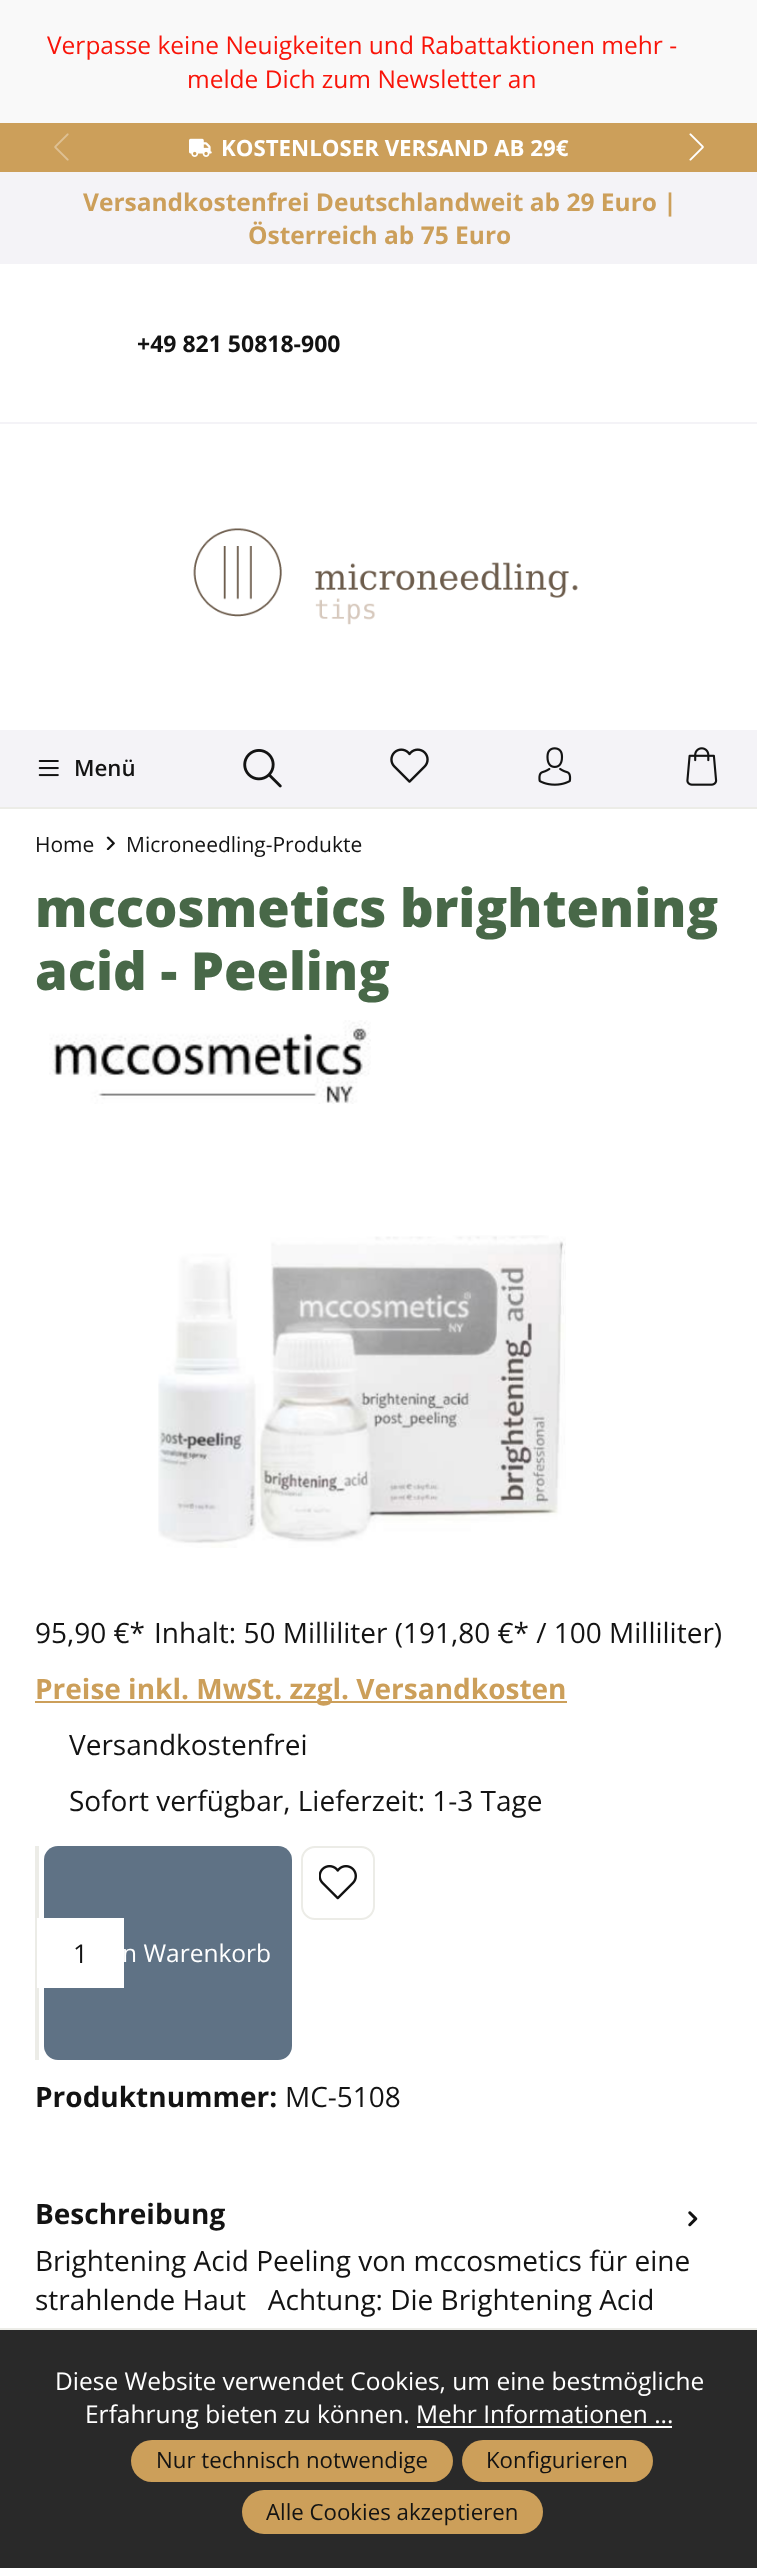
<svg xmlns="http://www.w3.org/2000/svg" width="757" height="2568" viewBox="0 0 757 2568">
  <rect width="100%" height="100%" fill="#fff"/>
  <path d="M0 0h757v123H0z" fill="#f9f9f9"/>
  <path d="M0 123h757v49H0z" fill="#cc9f5a"/>
  <image x="54" y="133" width="15" height="28" href="img/1.png"/>
  <image x="689" y="133" width="15" height="28" href="img/2.png"/>
  <image x="189" y="138" width="23" height="19" href="img/3.png"/>
  <path d="M0 172h757v92H0z" fill="#f4f3f7"/>
  <path d="M0 422h757v2H0z" fill="#f4f3f7"/>
  <image x="193" y="528" width="385" height="97" href="img/4.png"/>
  <path d="M0 730h757v77H0z" fill="#f4f3f7"/>
  <image x="38" y="760" width="21" height="17" href="img/5.png"/>
  <image x="243" y="749" width="39" height="39" href="img/6.png"/>
  <image x="390" y="748" width="39" height="35" href="img/7.png"/>
  <image x="538" y="747" width="34" height="39" href="img/8.png"/>
  <image x="686" y="747" width="32" height="39" href="img/9.png"/>
  <path d="M0 807h757v2H0z" fill="#ecece7"/>
  <image x="106" y="836" width="9" height="14" href="img/10.png"/>
  <image x="49" y="1020" width="322" height="84" href="img/11.png"/>
  <image x="158" y="1235" width="408" height="313" href="img/12.png"/>
  <path d="M35 1701h532v2H35z" fill="#cc9f5a"/>
  <path d="M35 1846h4v214H35z" fill="#ecece7"/>
  <rect x="44" y="1846" width="248" height="214" rx="14" fill="#5f7285"/>
  <path d="M37 1918h87v70H37z" fill="#fff"/>
  <rect x="302" y="1847" width="72" height="72" rx="13" fill="none" stroke="#ecece7" stroke-width="2"/>
  <image x="319" y="1865" width="38" height="35" href="img/13.png"/>
  <image x="688" y="2211" width="10" height="16" href="img/14.png"/>
  <path d="M0 2330h757v238H0z" fill="#292929"/>
  <path d="M0 2328h757v2H0z" fill="#ecece7"/>
  <path d="M417 2426h255v2H417z" fill="#fff"/>
  <rect x="131" y="2440" width="322" height="42" rx="21" fill="#cc9f5a"/>
  <rect x="462" y="2440" width="191" height="42" rx="21" fill="#cc9f5a"/>
  <rect x="242" y="2490" width="301" height="44" rx="22" fill="#cc9f5a"/>
  <g font-family="Open Sans" font-size="24.5" fill="#f91409">
    <text x="47" y="54">Verpasse keine Neuigkeiten und Rabattaktionen mehr -</text>
    <text x="187" y="88">melde Dich zum Newsletter an</text>
  </g>
  <text x="221" y="156" font-family="Open Sans" font-size="22.25" font-weight="bold" fill="#fff">KOSTENLOSER VERSAND AB 29€</text>
  <g font-family="Open Sans" font-size="24.5" font-weight="bold" fill="#cc9f5a">
    <text x="83" y="211">Versandkostenfrei Deutschlandweit ab 29 Euro |</text>
    <text x="248" y="244">Österreich ab 75 Euro</text>
  </g>
  <text x="137" y="352" font-family="Open Sans" font-size="23" font-weight="bold" fill="#131313">+49 821 50818-900</text>
  <text x="74" y="776" font-family="Open Sans" font-size="22.25" font-weight="600" fill="#131313">Menü</text>
  <g font-family="Open Sans" font-size="21" fill="#131313">
    <text x="35" y="852">Home</text>
    <text x="126" y="852">Microneedling-Produkte</text>
  </g>
  <g font-family="Open Sans" font-size="52.5" font-weight="800" fill="#486848">
    <text x="35" y="927">mccosmetics brightening</text>
    <text x="35" y="990">acid - Peeling</text>
  </g>
  <g font-family="Open Sans" font-size="28" fill="#131313">
    <text x="35" y="1643">95,90 €*</text>
    <text x="154" y="1643">Inhalt: 50 Milliliter (191,80 €* / 100 Milliliter)</text>
  </g>
  <text x="35" y="1699" font-family="Open Sans" font-size="28" font-weight="bold" fill="#cc9f5a">Preise inkl. MwSt. zzgl. Versandkosten</text>
  <g font-family="Open Sans" font-size="28" fill="#131313">
    <text x="69" y="1755">Versandkostenfrei</text>
    <text x="69" y="1811">Sofort verfügbar, Lieferzeit: 1-3 Tage</text>
  </g>
  <text x="73" y="1963" font-family="Open Sans" font-size="26" fill="#131313">1</text>
  <text x="122" y="1962" font-family="Open Sans" font-size="24.5" fill="#fff">n Warenkorb</text>
  <text x="35" y="2107" font-family="Open Sans" font-size="28" font-weight="bold" fill="#131313">Produktnummer:</text>
  <text x="285" y="2107" font-family="Open Sans" font-size="28" fill="#131313">MC-5108</text>
  <text x="35" y="2224" font-family="Open Sans" font-size="28" font-weight="bold" fill="#131313">Beschreibung</text>
  <g font-family="Open Sans" font-size="28" fill="#131313">
    <text x="35" y="2271">Brightening Acid Peeling von mccosmetics für eine</text>
    <text x="35" y="2310" xml:space="preserve">strahlende Haut   Achtung: Die Brightening Acid</text>
  </g>
  <g font-family="Open Sans" font-size="24.5" fill="#fff">
    <text x="55" y="2390">Diese Website verwendet Cookies, um eine bestmögliche</text>
    <text x="85" y="2423">Erfahrung bieten zu können.</text>
    <text x="416" y="2423">Mehr Informationen ...</text>
  </g>
  <g font-family="Open Sans" font-size="22.25" fill="#131313">
    <text x="156" y="2468">Nur technisch notwendige</text>
    <text x="486" y="2468">Konfigurieren</text>
    <text x="266" y="2520">Alle Cookies akzeptieren</text>
  </g>
</svg>
